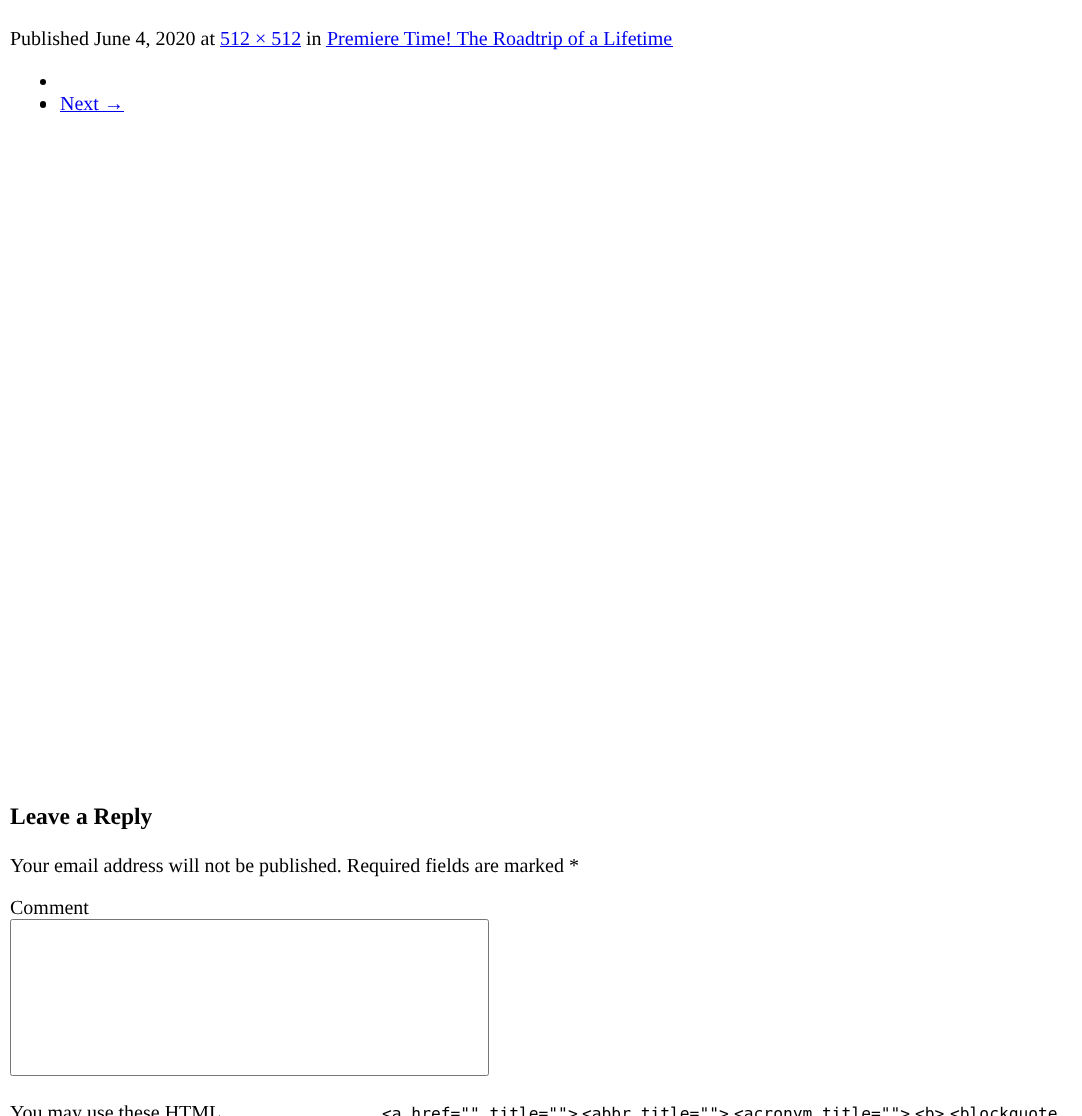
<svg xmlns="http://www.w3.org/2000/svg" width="1082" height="1116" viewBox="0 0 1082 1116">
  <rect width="100%" height="100%" fill="#fff"/>
  <path d="M220 46h81v1H220z" fill="#00e"/>
  <path d="M326 46h347v1H326z" fill="#00e"/>
  <circle cx="43" cy="82" r="3" fill="#000"/>
  <rect x="40" y="101" width="6" height="7" rx="3" fill="#000"/>
  <path d="M60 111h64v1H60z" fill="#00e"/>
  <rect x="10.5" y="919.5" width="478" height="156" rx="2" fill="none" stroke="#767676"/>
  <text x="10" y="45" font-family="Liberation Serif" font-size="20" fill="#000">Published June 4, 2020 at</text>
  <text x="220" y="45" font-family="Liberation Serif" font-size="20" fill="#00e">512 × 512</text>
  <text x="306" y="45" font-family="Liberation Serif" font-size="20" fill="#000">in</text>
  <g font-family="Liberation Serif" font-size="20" fill="#00e">
    <text x="327" y="45">Premiere Time! The Roadtrip of a Lifetime</text>
    <text x="60" y="110">Next →</text>
  </g>
  <text x="10" y="824" font-family="Liberation Serif" font-size="23.5" font-weight="bold" fill="#000">Leave a Reply</text>
  <g font-family="Liberation Serif" font-size="20" fill="#000">
    <text x="10" y="872">Your email address will not be published. Required fields are marked *</text>
    <text x="10" y="914">Comment</text>
    <text x="10" y="1119">You may use these HTML</text>
  </g>
  <g font-family="DejaVu Sans Mono" font-size="16.25" fill="#000">
    <text x="382" y="1119">&lt;a href="" title=""&gt;</text>
    <text x="582" y="1119">&lt;abbr title=""&gt;</text>
    <text x="734" y="1119">&lt;acronym title=""&gt;</text>
    <text x="915" y="1119">&lt;b&gt;</text>
    <text x="950" y="1119">&lt;blockquote</text>
  </g>
</svg>
